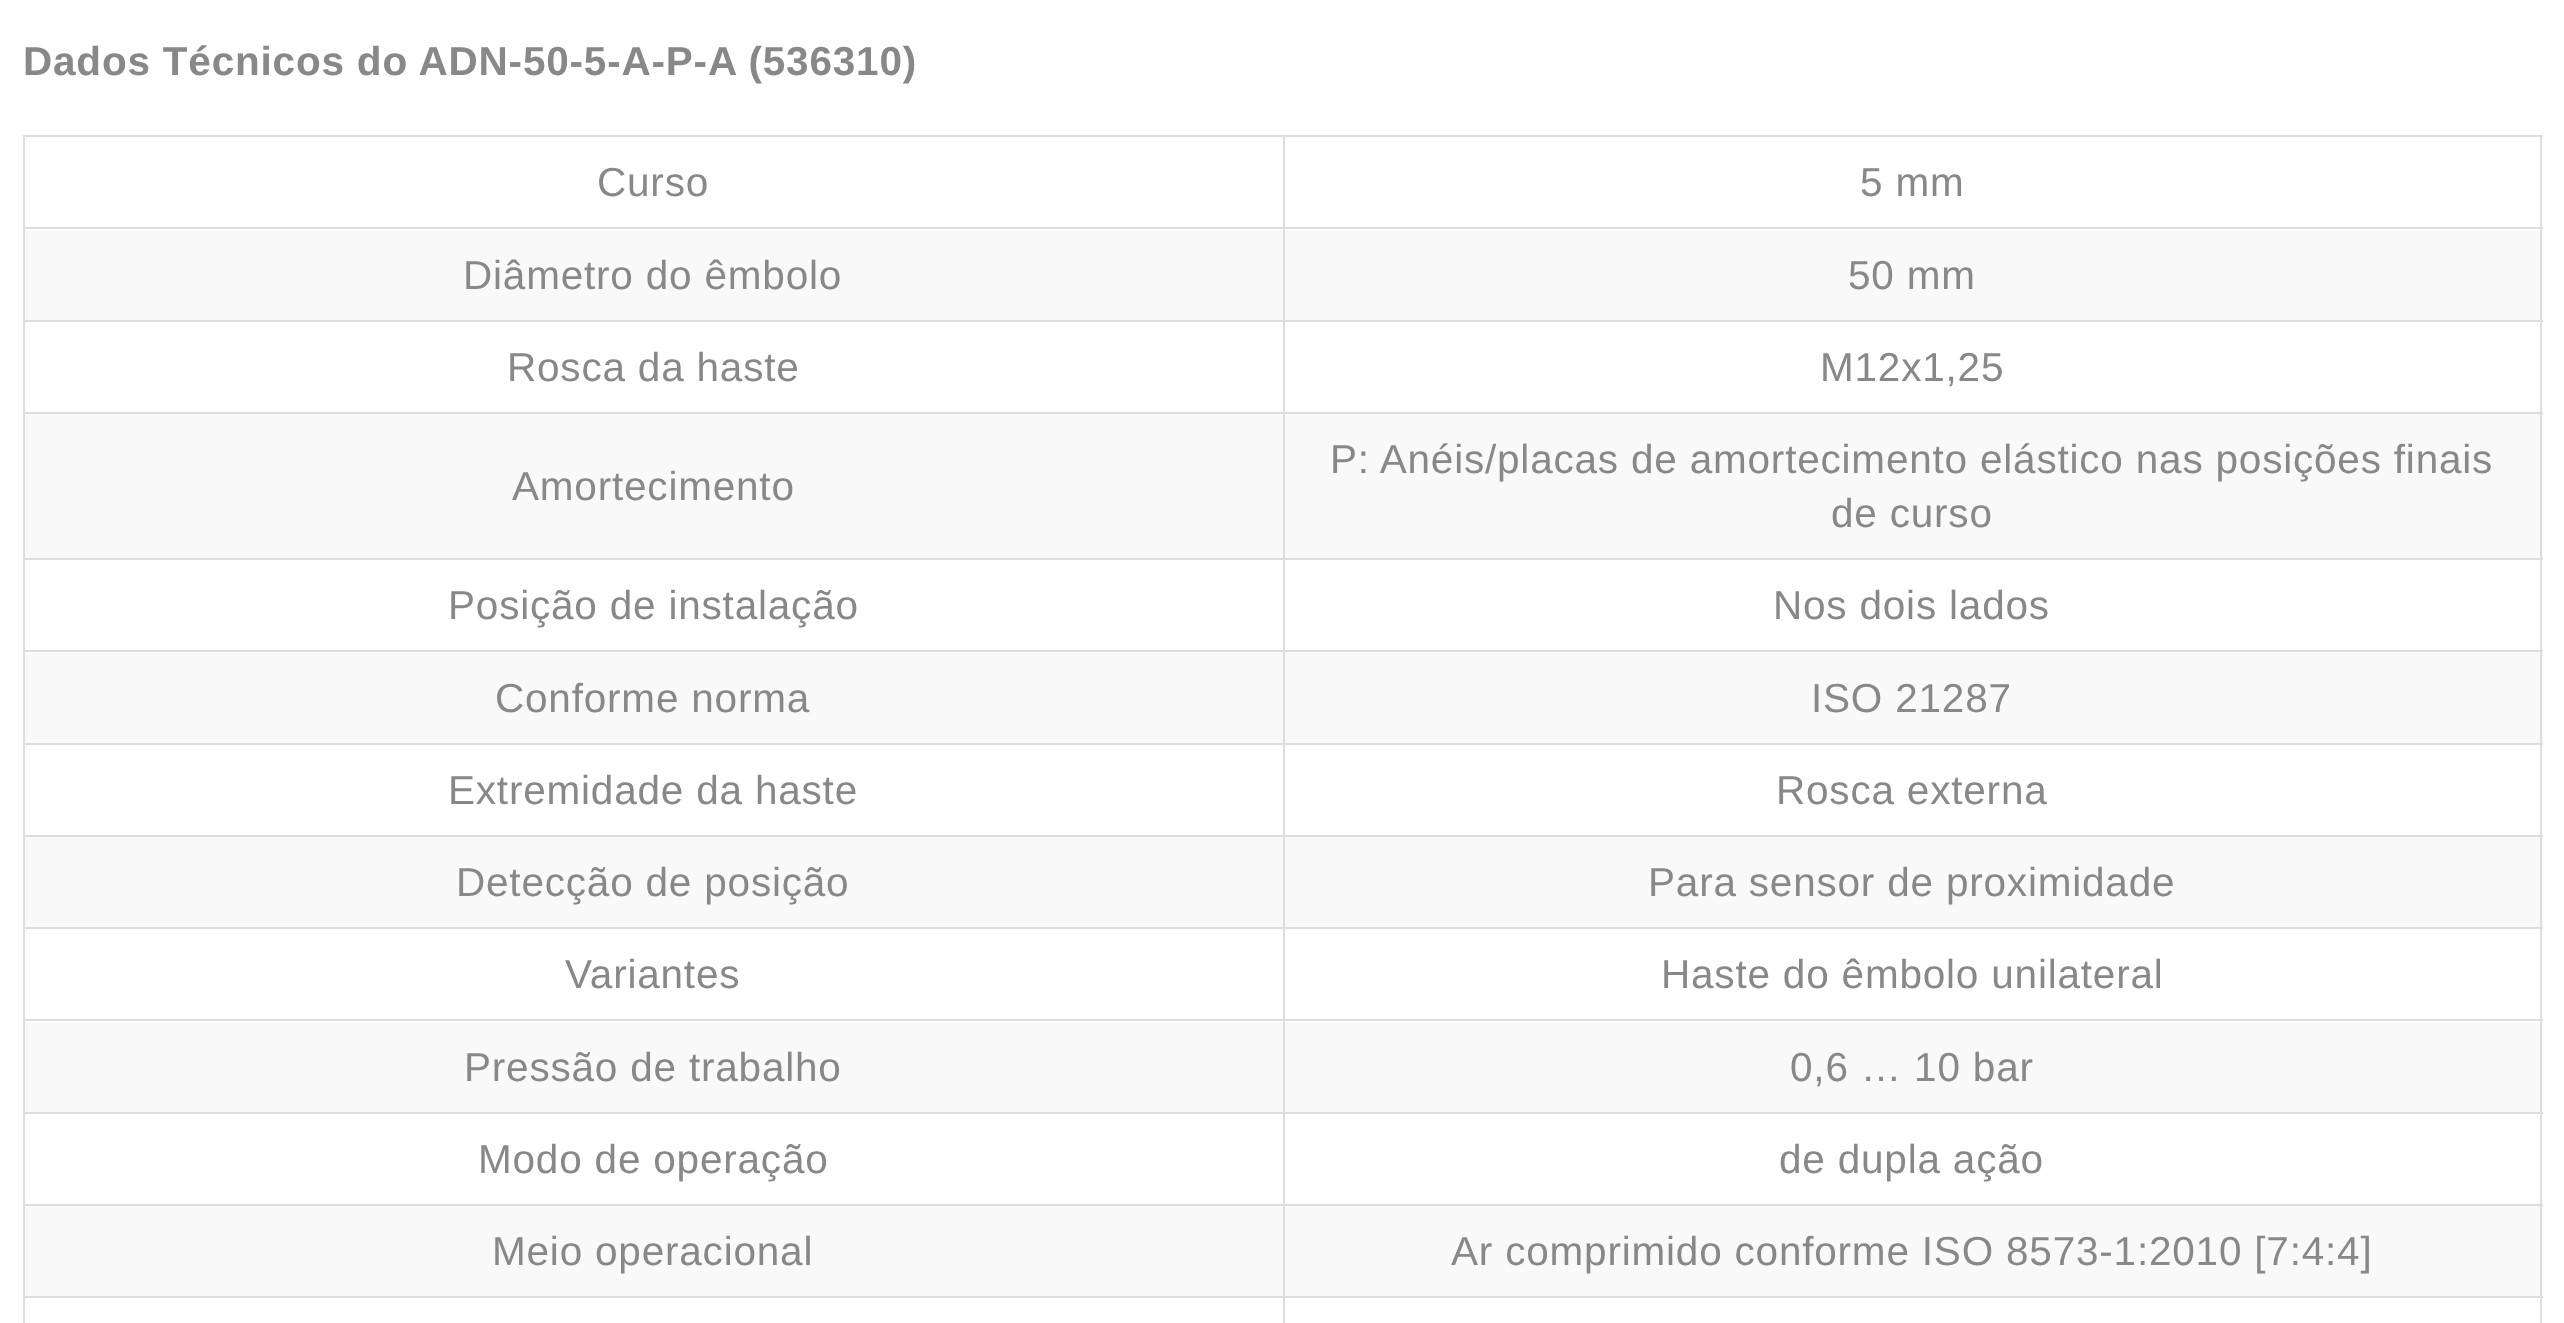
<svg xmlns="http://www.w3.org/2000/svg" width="2564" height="1323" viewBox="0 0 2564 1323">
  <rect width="100%" height="100%" fill="#fff"/>
  <path d="M1283 135h1260v2H1283z" fill="#ddd"/>
  <path d="M1283 227h1260v2H1283z" fill="#ddd"/>
  <path d="M25 230h2518v90H25z" fill="#f9f9f9"/>
  <path d="M1283 320h1260v2H1283z" fill="#ddd"/>
  <path d="M1283 412h1260v2H1283z" fill="#ddd"/>
  <path d="M25 414h2518v144H25z" fill="#f9f9f9"/>
  <path d="M1283 558h1260v2H1283z" fill="#ddd"/>
  <path d="M1283 650h1260v2H1283z" fill="#ddd"/>
  <path d="M25 653h2518v90H25z" fill="#f9f9f9"/>
  <path d="M1283 743h1260v2H1283z" fill="#ddd"/>
  <path d="M1283 835h1260v2H1283z" fill="#ddd"/>
  <path d="M25 837h2518v90H25z" fill="#f9f9f9"/>
  <path d="M1283 927h1260v2H1283z" fill="#ddd"/>
  <path d="M1283 1019h1260v2H1283z" fill="#ddd"/>
  <path d="M25 1022h2518v90H25z" fill="#f9f9f9"/>
  <path d="M1283 1112h1260v2H1283z" fill="#ddd"/>
  <path d="M1283 1204h1260v2H1283z" fill="#ddd"/>
  <path d="M25 1206h2518v90H25z" fill="#f9f9f9"/>
  <path d="M1283 1296h1260v2H1283z" fill="#ddd"/>
  <path d="M1283 1296h2v27H1283z" fill="#ddd"/>
  <path d="M23 1296h1262v2H23z" fill="#ddd"/>
  <path d="M1283 1204h2v94H1283z" fill="#ddd"/>
  <path d="M23 1204h1262v2H23z" fill="#ddd"/>
  <path d="M1283 1112h2v94H1283z" fill="#ddd"/>
  <path d="M23 1112h1262v2H23z" fill="#ddd"/>
  <path d="M1283 1019h2v95H1283z" fill="#ddd"/>
  <path d="M23 1019h1262v2H23z" fill="#ddd"/>
  <path d="M1283 927h2v95H1283z" fill="#ddd"/>
  <path d="M23 927h1262v2H23z" fill="#ddd"/>
  <path d="M1283 835h2v94H1283z" fill="#ddd"/>
  <path d="M23 835h1262v2H23z" fill="#ddd"/>
  <path d="M1283 743h2v94H1283z" fill="#ddd"/>
  <path d="M23 743h1262v2H23z" fill="#ddd"/>
  <path d="M1283 650h2v95H1283z" fill="#ddd"/>
  <path d="M23 650h1262v2H23z" fill="#ddd"/>
  <path d="M1283 558h2v95H1283z" fill="#ddd"/>
  <path d="M23 558h1262v2H23z" fill="#ddd"/>
  <path d="M1283 412h2v148H1283z" fill="#ddd"/>
  <path d="M23 412h1262v2H23z" fill="#ddd"/>
  <path d="M1283 320h2v94H1283z" fill="#ddd"/>
  <path d="M23 320h1262v2H23z" fill="#ddd"/>
  <path d="M1283 227h2v95H1283z" fill="#ddd"/>
  <path d="M23 227h1262v2H23z" fill="#ddd"/>
  <path d="M1283 135h2v95H1283z" fill="#ddd"/>
  <path d="M23 135h1262v2H23z" fill="#ddd"/>
  <path d="M23 1296h2v27H23z" fill="#ddd"/>
  <path d="M23 1204h2v94H23z" fill="#ddd"/>
  <path d="M23 1112h2v94H23z" fill="#ddd"/>
  <path d="M23 1019h2v95H23z" fill="#ddd"/>
  <path d="M23 927h2v95H23z" fill="#ddd"/>
  <path d="M23 835h2v94H23z" fill="#ddd"/>
  <path d="M23 743h2v94H23z" fill="#ddd"/>
  <path d="M23 650h2v95H23z" fill="#ddd"/>
  <path d="M23 558h2v95H23z" fill="#ddd"/>
  <path d="M23 412h2v148H23z" fill="#ddd"/>
  <path d="M23 320h2v94H23z" fill="#ddd"/>
  <path d="M23 227h2v95H23z" fill="#ddd"/>
  <path d="M23 135h2v95H23z" fill="#ddd"/>
  <path d="M2540 1296h2v27H2540z" fill="#ddd"/>
  <path d="M2540 1204h2v94H2540z" fill="#ddd"/>
  <path d="M2540 1112h2v94H2540z" fill="#ddd"/>
  <path d="M2540 1019h2v95H2540z" fill="#ddd"/>
  <path d="M2540 927h2v95H2540z" fill="#ddd"/>
  <path d="M2540 835h2v94H2540z" fill="#ddd"/>
  <path d="M2540 743h2v94H2540z" fill="#ddd"/>
  <path d="M2540 650h2v95H2540z" fill="#ddd"/>
  <path d="M2540 558h2v95H2540z" fill="#ddd"/>
  <path d="M2540 412h2v148H2540z" fill="#ddd"/>
  <path d="M2540 320h2v94H2540z" fill="#ddd"/>
  <path d="M2540 227h2v95H2540z" fill="#ddd"/>
  <path d="M2540 135h2v95H2540z" fill="#ddd"/>
  <text x="23" y="75" font-family="Liberation Sans" font-size="40.5" font-weight="bold" letter-spacing="0.8" fill="#888">Dados Técnicos do ADN-50-5-A-P-A (536310)</text>
  <g font-family="Liberation Sans" font-size="40.5" letter-spacing="0.8" fill="#888">
    <text x="597" y="196">Curso</text>
    <text x="1860" y="196">5 mm</text>
    <text x="463" y="289">Diâmetro do êmbolo</text>
    <text x="1848" y="289">50 mm</text>
    <text x="507" y="381">Rosca da haste</text>
    <text x="1820" y="381">M12x1,25</text>
    <text x="512" y="500">Amortecimento</text>
    <text x="1330" y="473">P: Anéis/placas de amortecimento elástico nas posições finais</text>
    <text x="1831" y="527">de curso</text>
    <text x="448" y="619">Posição de instalação</text>
    <text x="1773" y="619">Nos dois lados</text>
    <text x="495" y="712">Conforme norma</text>
    <text x="1811" y="712">ISO 21287</text>
    <text x="448" y="804">Extremidade da haste</text>
    <text x="1776" y="804">Rosca externa</text>
    <text x="456" y="896">Detecção de posição</text>
    <text x="1648" y="896">Para sensor de proximidade</text>
    <text x="565" y="988">Variantes</text>
    <text x="1661" y="988">Haste do êmbolo unilateral</text>
    <text x="464" y="1081">Pressão de trabalho</text>
    <text x="1790" y="1081">0,6 … 10 bar</text>
    <text x="478" y="1173">Modo de operação</text>
    <text x="1779" y="1173">de dupla ação</text>
    <text x="492" y="1265">Meio operacional</text>
    <text x="1451" y="1265">Ar comprimido conforme ISO 8573-1:2010 [7:4:4]</text>
  </g>
</svg>
